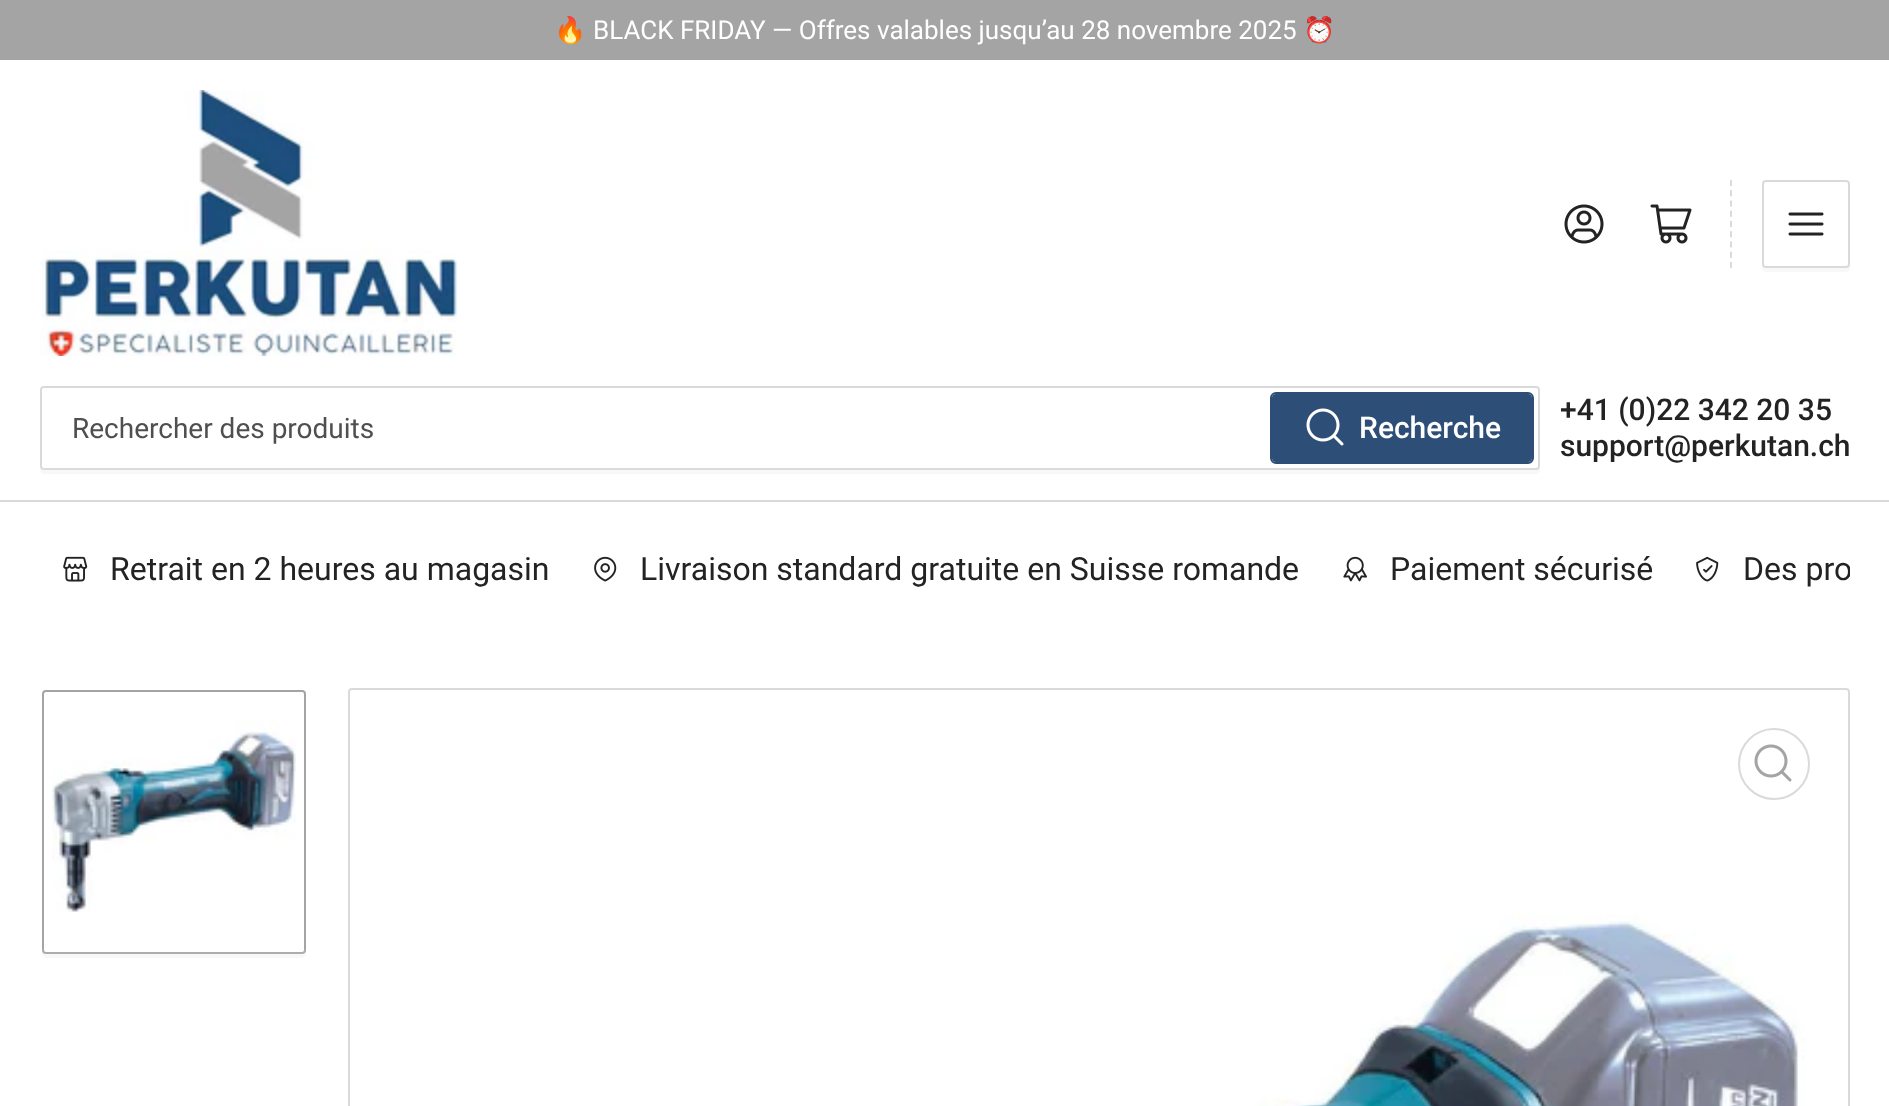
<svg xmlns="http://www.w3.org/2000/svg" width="1889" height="1106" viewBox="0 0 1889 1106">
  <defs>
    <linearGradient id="g1" gradientUnits="userSpaceOnUse" x1="174" y1="1016" x2="174" y2="946"><stop offset="0" stop-color="#fff"/><stop offset="1" stop-color="#fff" stop-opacity="0"/></linearGradient>
    <clipPath id="clip1"><path d="M40 550h1810v38H40z"/></clipPath>
  </defs>
  <rect width="100%" height="100%" fill="#fff"/>
  <path d="M0 0h1889v60H0z" fill="#a5a4a5"/>
  <path d="M0 500h1889v2H0z" fill="#dadada"/>
  <image x="40" y="90" width="418" height="266" href="img/1.png"/>
  <image x="1564" y="204" width="40" height="40" href="img/2.png"/>
  <image x="1650" y="204" width="42" height="40" href="img/3.png"/>
  <path d="M1731 180V268" fill="none" stroke="#dadada" stroke-width="2" stroke-dasharray="6 4.24"/>
  <path d="M1762 264V268C1762 270 1764 272 1766 272H1846C1848 272 1850 270 1850 268V264C1850 266 1848 268 1846 268H1766C1764 268 1762 266 1762 264Z" fill="#f8f8f8"/>
  <rect x="1763" y="181" width="86" height="86" rx="3" fill="none" stroke="#dadada" stroke-width="2"/>
  <image x="1788" y="212" width="36" height="24" href="img/4.png"/>
  <path d="M40 466V470C40 472 42 474 44 474H1536C1538 474 1540 472 1540 470V466C1540 468 1538 470 1536 470H44C42 470 40 468 40 466Z" fill="#f8f8f8"/>
  <rect x="41" y="387" width="1498" height="82" rx="3" fill="none" stroke="#dadada" stroke-width="2"/>
  <rect x="1271" y="393" width="262" height="70" rx="5" fill="none" stroke="#2d4e77" stroke-width="2"/>
  <rect x="1272" y="394" width="260" height="68" rx="4" fill="#2d4e77"/>
  <image x="1306" y="408" width="38" height="38" href="img/5.png"/>
  <image x="63" y="556" width="25" height="26" href="img/6.png"/>
  <image x="594" y="556" width="23" height="26" href="img/7.png"/>
  <image x="1343" y="556" width="24" height="26" href="img/8.png"/>
  <image x="1696" y="556" width="23" height="26" href="img/9.png"/>
  <path d="M42 950V954C42 956 44 958 46 958H302C304 958 306 956 306 954V950C306 952 304 954 302 954H44L43 952Z" fill="#f8f8f8"/>
  <rect x="43" y="691" width="262" height="262" rx="3" fill="#fff" stroke="#a5a4a5" stroke-width="2"/>
  <image x="52" y="720" width="244" height="192" href="img/10.png"/>
  <path d="M42 948h264v6H42z" fill="url(#g1)"/>
  <rect x="349" y="689" width="1500" height="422" rx="3" fill="none" stroke="#dadada" stroke-width="2"/>
  <circle cx="1774" cy="764" r="35" fill="none" stroke="#dadada" stroke-width="2"/>
  <image x="1754" y="744" width="38" height="38" href="img/11.png"/>
  <image x="1258" y="914" width="547" height="192" href="img/12.png"/>
  <text x="554" y="39" font-family="Noto Color Emoji" font-size="26" fill="#fff">🔥</text>
  <text x="593" y="39" font-family="Roboto" font-size="26" fill="#fff">BLACK FRIDAY — Offres valables jusqu’au 28 novembre 2025</text>
  <text x="1303" y="39" font-family="Noto Color Emoji" font-size="26" fill="#fff">⏰</text>
  <text x="72" y="438" font-family="Roboto" font-size="28" fill="#4f4f4f">Rechercher des produits</text>
  <text x="1359" y="438" font-family="Roboto" font-size="30" font-weight="500" fill="#fff">Recherche</text>
  <g font-family="Roboto" font-size="30" font-weight="500" fill="#232323">
    <text x="1560" y="420">+41 (0)22 342 20 35</text>
    <text x="1560" y="456">support@perkutan.ch</text>
  </g>
  <g font-family="Roboto" font-size="32" fill="#232323">
    <text x="110" y="580">Retrait en 2 heures au magasin</text>
    <text x="640" y="580">Livraison standard gratuite en Suisse romande</text>
    <text x="1390" y="580">Paiement sécurisé</text>
  </g>
  <g clip-path="url(#clip1)">
    <text x="1743" y="580" font-family="Roboto" font-size="32" fill="#232323">Des pro</text>
  </g>
</svg>
